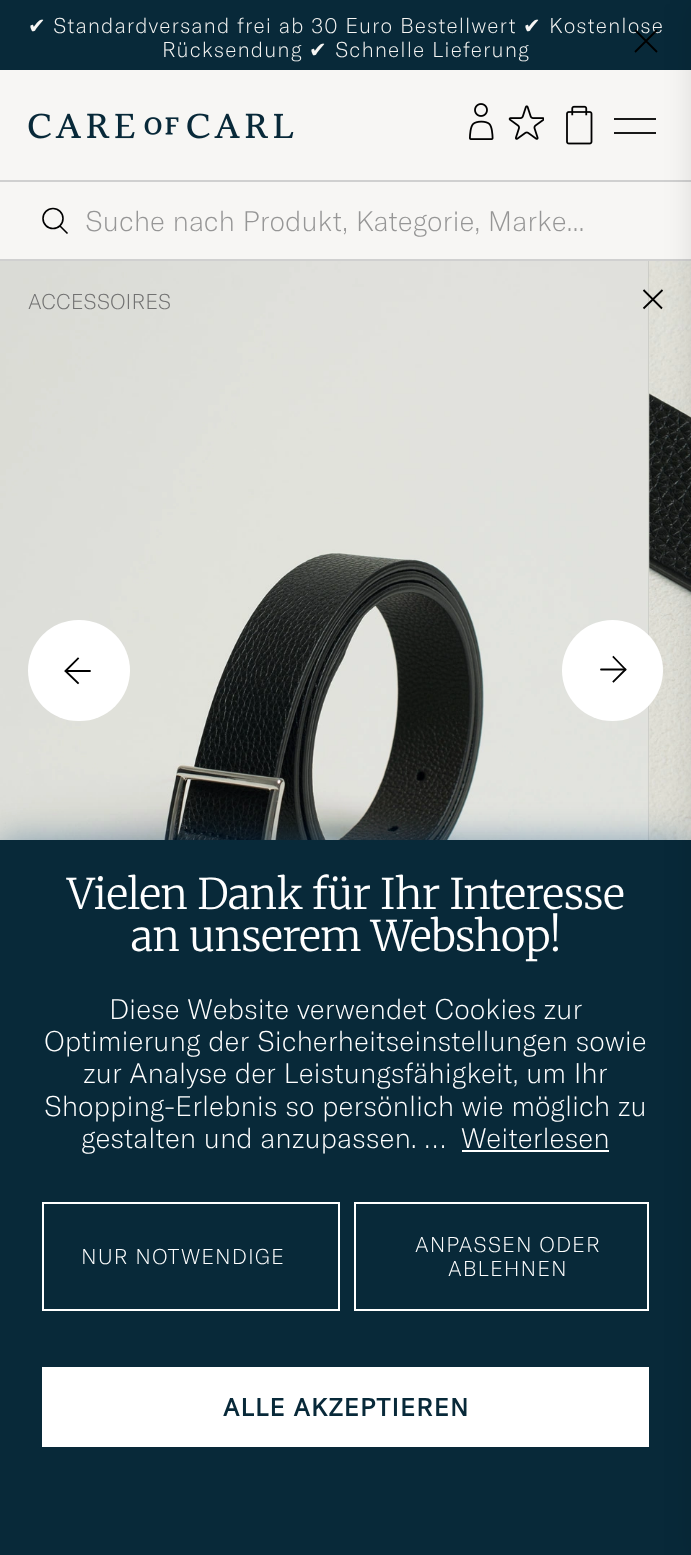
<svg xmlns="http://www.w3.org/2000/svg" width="691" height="1555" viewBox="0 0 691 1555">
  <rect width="100%" height="100%" fill="#f7f6f4"/>
  <path d="M0 0h691v70H0z" fill="#082939"/>
  <path d="M0 259h691v2H0z" fill="#d0d0d0"/>
  <image x="28" y="113" width="266" height="26" href="img/1.png"/>
  <image x="469" y="103" width="25" height="37" href="img/2.png"/>
  <image x="508" y="105" width="36" height="35" href="img/3.png"/>
  <image x="566" y="105" width="27" height="40" href="img/4.png"/>
  <path d="M614 118h42v2H614z" fill="#191918"/>
  <path d="M614 132h42v2H614z" fill="#191918"/>
  <path d="M0 180h691v2H0z" fill="#d0d0d0"/>
  <circle cx="53" cy="218.5" r="10" fill="none" stroke="#000" stroke-width="1.6"/>
  <path d="M60 226L67.5 233.5" fill="none" stroke="#000" stroke-width="1.6"/>
  <image x="0" y="261" width="650" height="579" href="img/5.png"/>
  <image x="649" y="261" width="42" height="579" href="img/6.png"/>
  <path d="M643.5 308.5L662.5 290M643.5 290L662 308.5" fill="none" stroke="#000" stroke-width="1.8"/>
  <rect x="28" y="620" width="102" height="101" rx="50.5" fill="#fff"/>
  <path d="M90 671H65.5" fill="none" stroke="#000" stroke-width="1.8" stroke-linecap="round" stroke-linejoin="round"/>
  <path d="M78 683L65.5 671L78 658.5" fill="none" stroke="#000" stroke-width="1.8" stroke-linecap="square" stroke-linejoin="round"/>
  <circle cx="612.5" cy="670.5" r="50.5" fill="#fff"/>
  <path d="M601 669.5H625.5" fill="none" stroke="#000" stroke-width="1.8" stroke-linecap="round" stroke-linejoin="round"/>
  <path d="M613.5 657L625.5 669.5L613.5 681.5" fill="none" stroke="#000" stroke-width="1.8" stroke-linecap="square" stroke-linejoin="round"/>
  <path d="M0 842h691v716H0z" fill="#00427a70" filter="blur(17.5px)"/>
  <path d="M0 840h691v715H0z" fill="#082939"/>
  <path d="M462 1150h147v2H462z" fill="#fff"/>
  <path d="M43 1203h296v107H43z" fill="none" stroke="#fff" stroke-width="2"/>
  <path d="M355 1203h293v107H355z" fill="none" stroke="#fff" stroke-width="2"/>
  <path d="M42 1367h607v80H42z" fill="#fff"/>
  <text x="28" y="33" font-family="DejaVu Sans" font-size="21" letter-spacing="1.05" fill="#f7f6f4">✔</text>
  <text x="53" y="33" font-family="GT America" font-size="21" font-weight="300" letter-spacing="1.05" fill="#f7f6f4">Standardversand frei ab 30 Euro Bestellwert</text>
  <text x="523" y="33" font-family="DejaVu Sans" font-size="21" letter-spacing="1.05" fill="#f7f6f4">✔</text>
  <g font-family="GT America" font-size="21" font-weight="300" letter-spacing="1.05" fill="#f7f6f4">
    <text x="549" y="33">Kostenlose</text>
    <text x="162" y="57">Rücksendung</text>
  </g>
  <text x="309" y="57" font-family="DejaVu Sans" font-size="21" letter-spacing="1.05" fill="#f7f6f4">✔</text>
  <text x="335" y="57" font-family="GT America" font-size="21" font-weight="300" letter-spacing="1.05" fill="#f7f6f4">Schnelle Lieferung</text>
  <text x="85" y="231" font-family="GT America" font-size="28" font-weight="300" fill="#969696">Suche nach Produkt, Kategorie, Marke...</text>
  <path d="M635 52L657 30M635 30L657 52" fill="none" stroke="#000" stroke-width="1.8"/>
  <rect x="691" y="4" width="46" height="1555" rx="4" fill="#0000001a" filter="blur(14px)"/>
  <text x="28" y="309" font-family="GT America" font-size="21" font-weight="300" fill="#717171">ACCESSOIRES</text>
  <g font-family="Merriweather" font-size="42" font-weight="300" letter-spacing="-0.4" fill="#fff">
    <text x="67" y="909">Vielen Dank für Ihr Interesse</text>
    <text x="131" y="951">an unserem Webshop!</text>
  </g>
  <g font-family="GT America" font-size="28" font-weight="300" fill="#fff">
    <text x="109" y="1019">Diese Website verwendet Cookies zur</text>
    <text x="44" y="1051">Optimierung der Sicherheitseinstellungen sowie</text>
    <text x="83" y="1083">zur Analyse der Leistungsfähigkeit, um Ihr</text>
    <text x="44" y="1116">Shopping-Erlebnis so persönlich wie möglich zu</text>
    <text x="81" y="1148">gestalten und anzupassen. …</text>
    <text x="461" y="1148">Weiterlesen</text>
  </g>
  <g font-family="GT America" font-size="21" font-weight="300" letter-spacing="1.05" fill="#fff">
    <text x="81" y="1264">NUR NOTWENDIGE</text>
    <text x="415" y="1252">ANPASSEN ODER</text>
    <text x="448" y="1276">ABLEHNEN</text>
  </g>
  <text x="223" y="1416" font-family="GT America" font-size="24.5" font-weight="bold" letter-spacing="1.25" fill="#082939">ALLE AKZEPTIEREN</text>
</svg>
